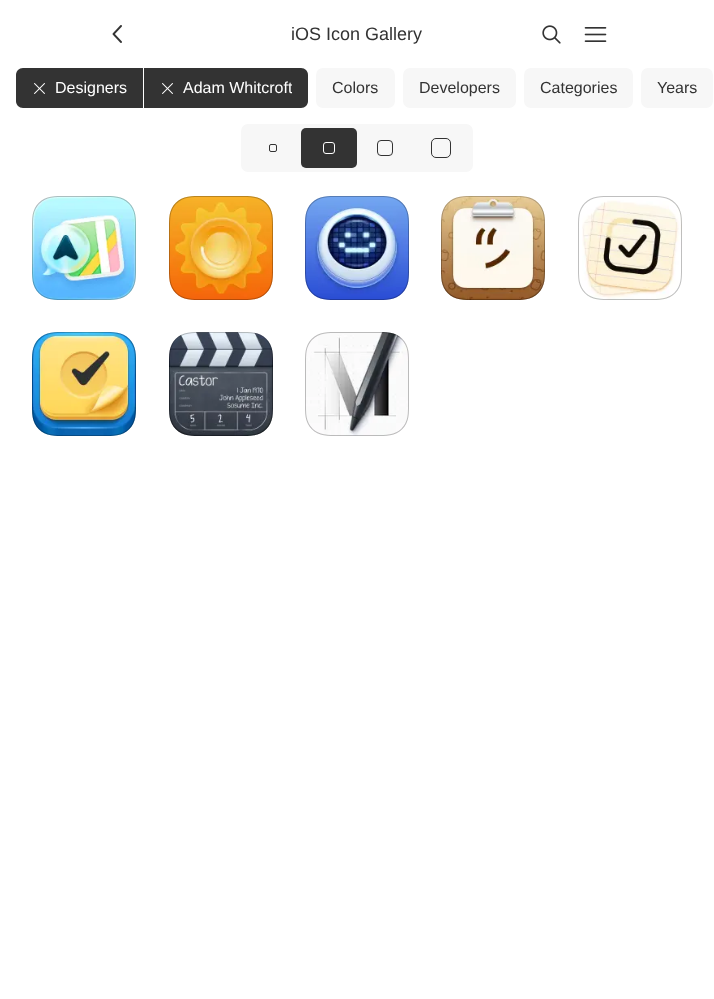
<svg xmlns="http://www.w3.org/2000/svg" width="714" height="999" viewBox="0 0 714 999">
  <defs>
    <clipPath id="clip1"><path d="M183 76h109v24H183z"/></clipPath>
  </defs>
  <rect width="100%" height="100%" fill="#fff"/>
  <image x="112" y="25" width="10" height="18" href="img/1.png"/>
  <image x="542" y="25" width="19" height="19" href="img/2.png"/>
  <image x="584" y="27" width="23" height="15" href="img/3.png"/>
  <path d="M23 68H143V108H23C19 108 16 105 16 101V75C16 71 19 68 23 68Z" fill="#333"/>
  <image x="34" y="83" width="11" height="11" href="img/4.png"/>
  <path d="M144 68H301C305 68 308 71 308 75V101C308 105 305 108 301 108H144Z" fill="#333"/>
  <image x="162" y="83" width="11" height="11" href="img/4.png"/>
  <rect x="316" y="68" width="79" height="40" rx="7" fill="#f7f7f7"/>
  <rect x="403" y="68" width="113" height="40" rx="7" fill="#f7f7f7"/>
  <rect x="524" y="68" width="109" height="40" rx="7" fill="#f7f7f7"/>
  <rect x="641" y="68" width="72" height="40" rx="7" fill="#f7f7f7"/>
  <rect x="241" y="124" width="232" height="48" rx="7" fill="#f7f7f7"/>
  <rect x="269.5" y="144.5" width="7" height="7" rx="1.5" fill="none" stroke="#333"/>
  <rect x="301" y="128" width="56" height="40" rx="5" fill="#333"/>
  <rect x="323.5" y="142.5" width="11" height="11" rx="2.5" fill="none" stroke="#fff"/>
  <rect x="377.5" y="140.5" width="15" height="15" rx="3.5" fill="none" stroke="#333"/>
  <rect x="431.5" y="138.5" width="19" height="19" rx="4.5" fill="none" stroke="#333"/>
  <image x="32" y="196" width="104" height="104" href="img/5.png"/>
  <image x="32" y="196" width="104" height="104" href="img/6.png"/>
  <image x="169" y="196" width="104" height="104" href="img/7.png"/>
  <image x="169" y="196" width="104" height="104" href="img/8.png"/>
  <image x="305" y="196" width="104" height="104" href="img/9.png"/>
  <image x="305" y="196" width="104" height="104" href="img/10.png"/>
  <image x="441" y="196" width="104" height="104" href="img/11.png"/>
  <image x="441" y="196" width="104" height="104" href="img/12.png"/>
  <image x="582" y="200" width="100" height="100" href="img/14.png"/>
  <image x="578" y="196" width="104" height="104" href="img/13.png"/>
  <image x="32" y="332" width="104" height="104" href="img/15.png"/>
  <image x="32" y="332" width="104" height="104" href="img/16.png"/>
  <image x="169" y="332" width="104" height="104" href="img/17.png"/>
  <image x="169" y="332" width="104" height="104" href="img/18.png"/>
  <image x="305" y="332" width="104" height="104" href="img/19.png"/>
  <image x="305" y="332" width="104" height="104" href="img/20.png"/>
  <text x="291" y="40" font-family="Liberation Sans" font-size="18" fill="#333">iOS Icon Gallery</text>
  <text x="55" y="93" font-family="Liberation Sans" font-size="16" fill="#fff">Designers</text>
  <g clip-path="url(#clip1)">
    <text x="183" y="93" font-family="Liberation Sans" font-size="16" fill="#fff">Adam Whitcroft</text>
  </g>
  <g font-family="Liberation Sans" font-size="16" fill="#333">
    <text x="332" y="93">Colors</text>
    <text x="419" y="93">Developers</text>
    <text x="540" y="93">Categories</text>
    <text x="657" y="93">Years</text>
  </g>
</svg>
